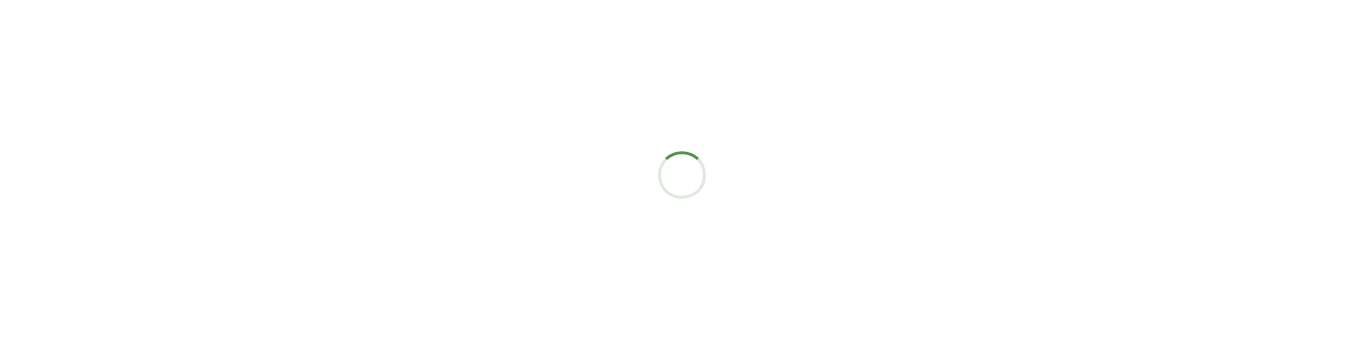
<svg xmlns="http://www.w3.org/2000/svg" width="1364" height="350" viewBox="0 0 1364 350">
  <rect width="100%" height="100%" fill="#fff"/>
  <path d="M666 159C675 150.5 689 150.5 698 159" fill="none" stroke="#549047" stroke-width="3"/>
  <path d="M698 159C702 163.5 704.5 169 704.5 175C704.5 202 665 205.5 660 179.5C658.5 172 661 164.5 666 159" fill="none" stroke="#54904733" stroke-width="3"/>
</svg>
